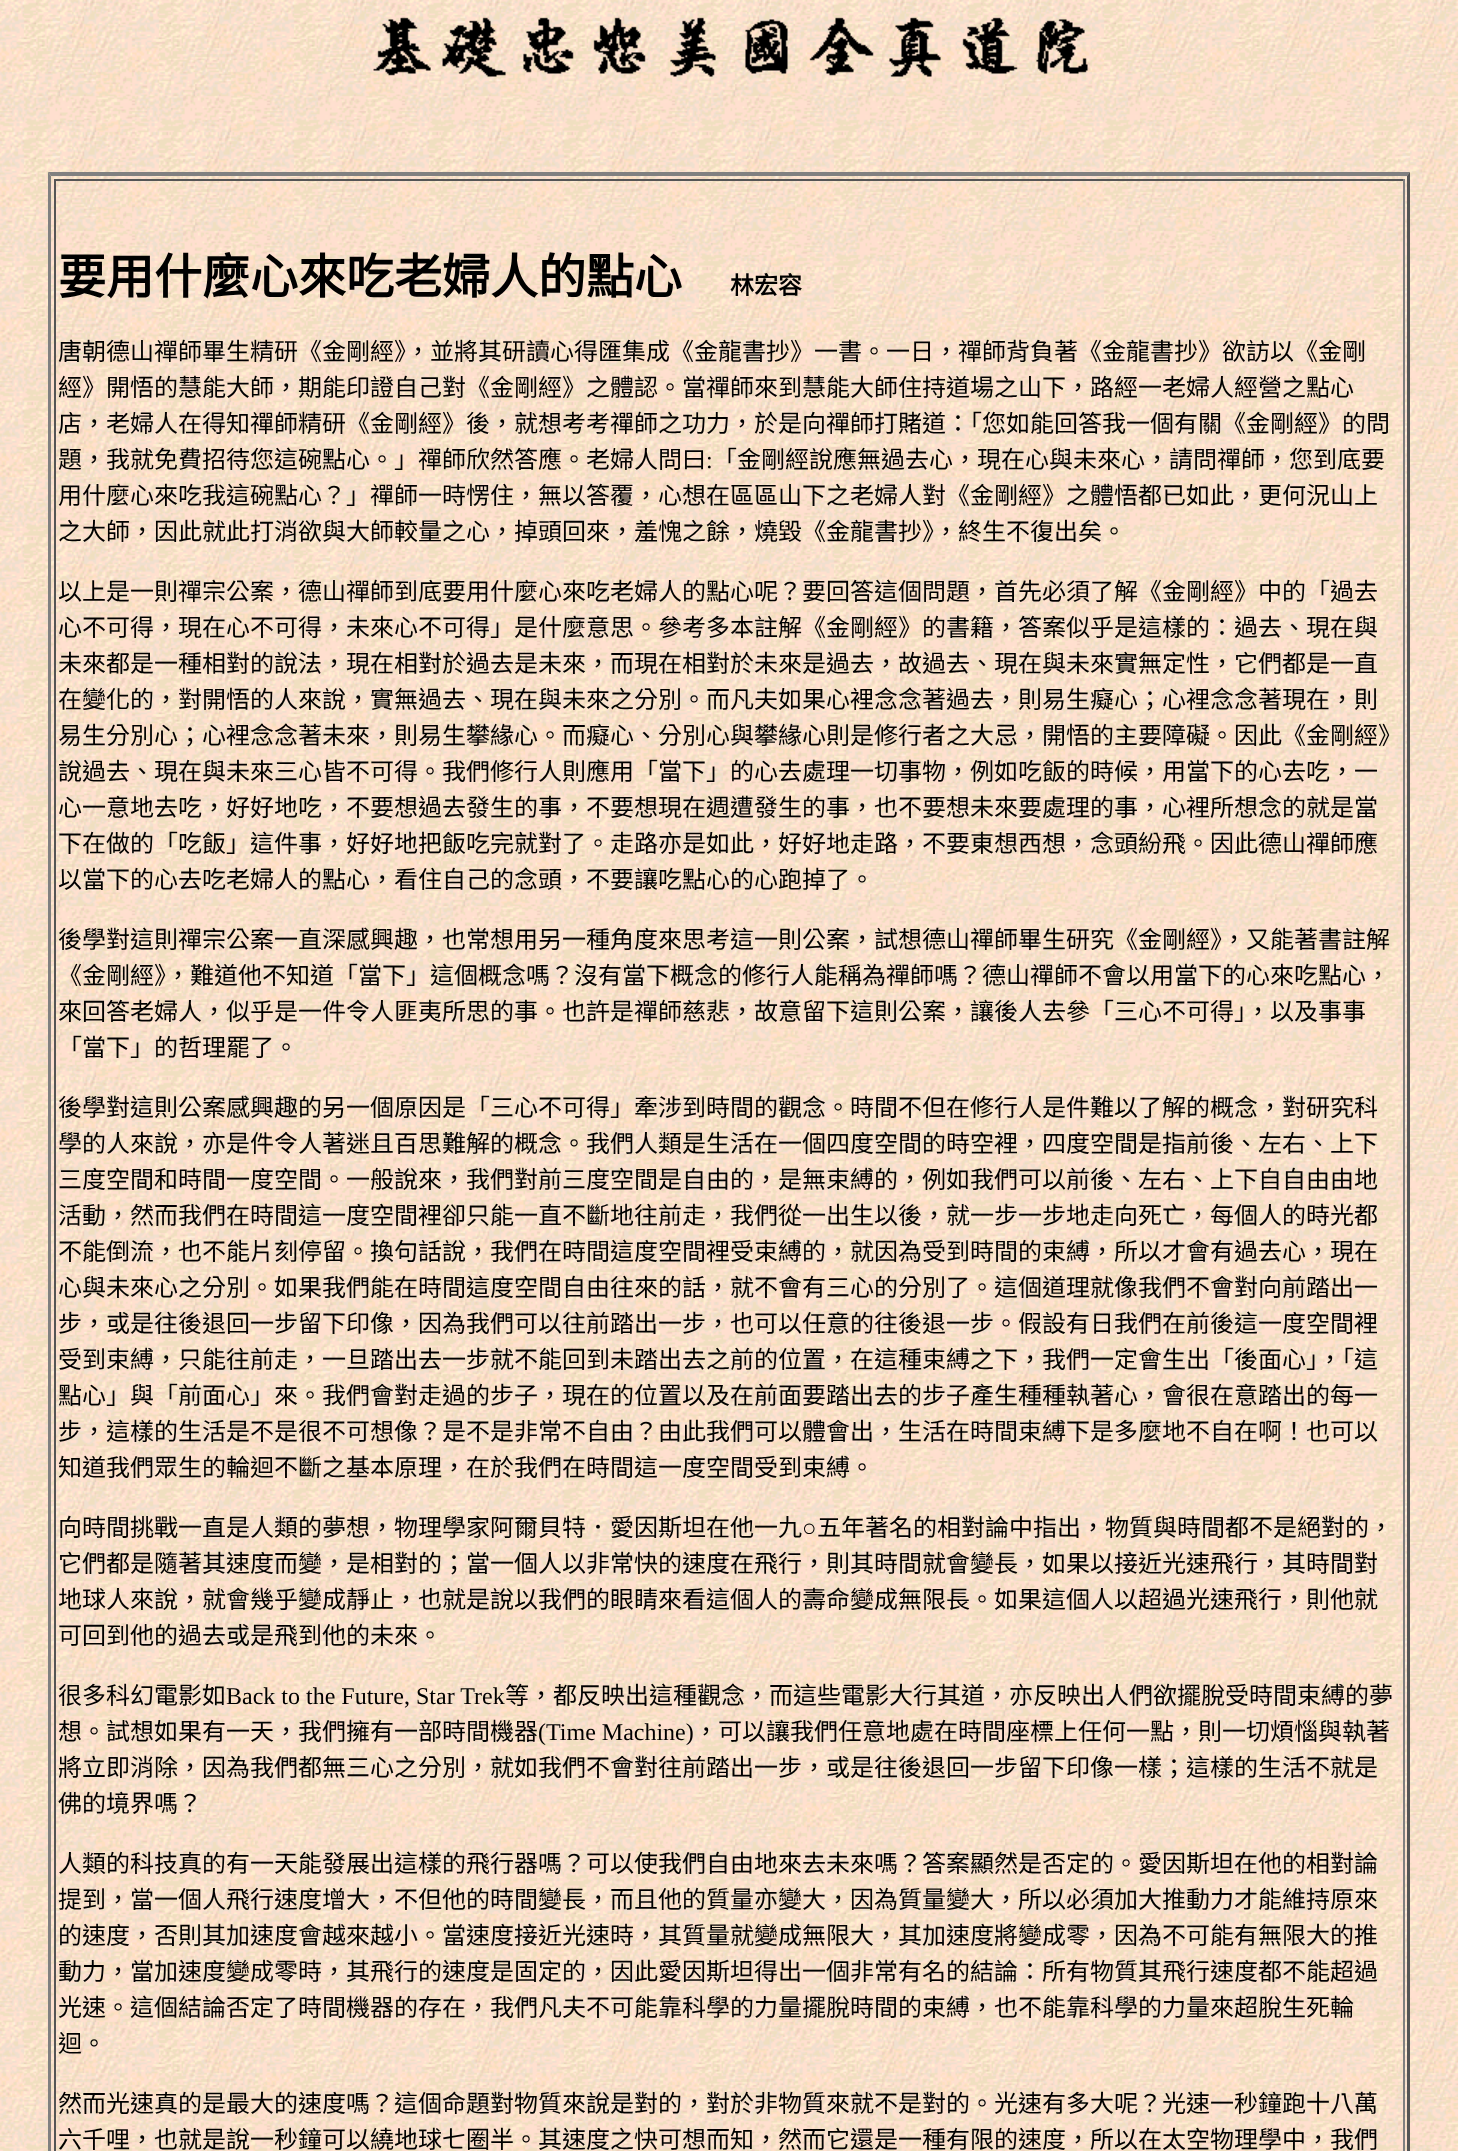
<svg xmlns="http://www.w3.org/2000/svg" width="1458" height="2151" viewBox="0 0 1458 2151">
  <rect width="100%" height="100%" fill="#fff"/>
  <image x="0" y="0" width="1458" height="2151" href="img/1.png"/>
  <image x="373" y="17" width="715" height="60" href="img/2.png"/>
  <path d="M48 172H1410L1407 176H51Z" fill="#808080"/>
  <path d="M1410 172V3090L1407 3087V176Z" fill="#555"/>
  <path d="M48 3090V172L51 176V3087Z" fill="#808080"/>
  <path d="M54 179h1350v2H54z" fill="#555"/>
  <path d="M1403 179h2v1972H1403z" fill="#808080"/>
  <path d="M54 179h2v1972H54z" fill="#555"/>
  <text x="58" y="294" font-family="Noto Sans CJK TC" font-size="48" font-weight="bold" fill="#000">要用什麼心來吃老婦人的點心</text>
  <text x="730" y="294" font-family="Noto Sans CJK TC" font-size="24" font-weight="bold" fill="#000">林宏容</text>
  <g font-family="Noto Sans CJK TC" font-size="24" fill="#000">
    <text x="58" y="360">唐朝德山禪師畢生精研《金剛經》，並將其研讀心得匯集成《金龍書抄》一書。一日，禪師背負著《金龍書抄》欲訪以《金剛</text>
    <text x="58" y="396">經》開悟的慧能大師，期能印證自己對《金剛經》之體認。當禪師來到慧能大師住持道場之山下，路經一老婦人經營之點心</text>
    <text x="58" y="432">店，老婦人在得知禪師精研《金剛經》後，就想考考禪師之功力，於是向禪師打賭道：「您如能回答我一個有關《金剛經》的問</text>
    <text x="58" y="468">題，我就免費招待您這碗點心。」禪師欣然答應。老婦人問曰</text>
  </g>
  <text x="706" y="468" font-family="Liberation Serif" font-size="24" fill="#000">:</text>
  <g font-family="Noto Sans CJK TC" font-size="24" fill="#000">
    <text x="713" y="468">「金剛經說應無過去心，現在心與未來心，請問禪師，您到底要</text>
    <text x="58" y="504">用什麼心來吃我這碗點心？」禪師一時愣住，無以答覆，心想在區區山下之老婦人對《金剛經》之體悟都已如此，更何況山上</text>
    <text x="58" y="540">之大師，因此就此打消欲與大師較量之心，掉頭回來，羞愧之餘，燒毀《金龍書抄》，終生不復出矣。</text>
    <text x="58" y="600">以上是一則禪宗公案，德山禪師到底要用什麼心來吃老婦人的點心呢？要回答這個問題，首先必須了解《金剛經》中的「過去</text>
    <text x="58" y="636">心不可得，現在心不可得，未來心不可得」是什麼意思。參考多本註解《金剛經》的書籍，答案似乎是這樣的：過去、現在與</text>
    <text x="58" y="672">未來都是一種相對的說法，現在相對於過去是未來，而現在相對於未來是過去，故過去、現在與未來實無定性，它們都是一直</text>
    <text x="58" y="708">在變化的，對開悟的人來說，實無過去、現在與未來之分別。而凡夫如果心裡念念著過去，則易生癡心；心裡念念著現在，則</text>
    <text x="58" y="744">易生分別心；心裡念念著未來，則易生攀緣心。而癡心、分別心與攀緣心則是修行者之大忌，開悟的主要障礙。因此《金剛經》</text>
    <text x="58" y="780">說過去、現在與未來三心皆不可得。我們修行人則應用「當下」的心去處理一切事物，例如吃飯的時候，用當下的心去吃，一</text>
    <text x="58" y="816">心一意地去吃，好好地吃，不要想過去發生的事，不要想現在週遭發生的事，也不要想未來要處理的事，心裡所想念的就是當</text>
    <text x="58" y="852">下在做的「吃飯」這件事，好好地把飯吃完就對了。走路亦是如此，好好地走路，不要東想西想，念頭紛飛。因此德山禪師應</text>
    <text x="58" y="888">以當下的心去吃老婦人的點心，看住自己的念頭，不要讓吃點心的心跑掉了。</text>
    <text x="58" y="948">後學對這則禪宗公案一直深感興趣，也常想用另一種角度來思考這一則公案，試想德山禪師畢生研究《金剛經》，又能著書註解</text>
    <text x="58" y="984">《金剛經》，難道他不知道「當下」這個概念嗎？沒有當下概念的修行人能稱為禪師嗎？德山禪師不會以用當下的心來吃點心，</text>
    <text x="58" y="1020">來回答老婦人，似乎是一件令人匪夷所思的事。也許是禪師慈悲，故意留下這則公案，讓後人去參「三心不可得」，以及事事</text>
    <text x="58" y="1056">「當下」的哲理罷了。</text>
    <text x="58" y="1116">後學對這則公案感興趣的另一個原因是「三心不可得」牽涉到時間的觀念。時間不但在修行人是件難以了解的概念，對研究科</text>
    <text x="58" y="1152">學的人來說，亦是件令人著迷且百思難解的概念。我們人類是生活在一個四度空間的時空裡，四度空間是指前後、左右、上下</text>
    <text x="58" y="1188">三度空間和時間一度空間。一般說來，我們對前三度空間是自由的，是無束縛的，例如我們可以前後、左右、上下自自由由地</text>
    <text x="58" y="1224">活動，然而我們在時間這一度空間裡卻只能一直不斷地往前走，我們從一出生以後，就一步一步地走向死亡，每個人的時光都</text>
    <text x="58" y="1260">不能倒流，也不能片刻停留。換句話說，我們在時間這度空間裡受束縛的，就因為受到時間的束縛，所以才會有過去心，現在</text>
    <text x="58" y="1296">心與未來心之分別。如果我們能在時間這度空間自由往來的話，就不會有三心的分別了。這個道理就像我們不會對向前踏出一</text>
    <text x="58" y="1332">步，或是往後退回一步留下印像，因為我們可以往前踏出一步，也可以任意的往後退一步。假設有日我們在前後這一度空間裡</text>
    <text x="58" y="1368">受到束縛，只能往前走，一旦踏出去一步就不能回到未踏出去之前的位置，在這種束縛之下，我們一定會生出「後面心」，「這</text>
    <text x="58" y="1404">點心」與「前面心」來。我們會對走過的步子，現在的位置以及在前面要踏出去的步子產生種種執著心，會很在意踏出的每一</text>
    <text x="58" y="1440">步，這樣的生活是不是很不可想像？是不是非常不自由？由此我們可以體會出，生活在時間束縛下是多麼地不自在啊！也可以</text>
    <text x="58" y="1476">知道我們眾生的輪迴不斷之基本原理，在於我們在時間這一度空間受到束縛。</text>
    <text x="58" y="1536">向時間挑戰一直是人類的夢想，物理學家阿爾貝特．愛因斯坦在他一九</text>
  </g>
  <text x="802" y="1536" font-family="Liberation Serif" font-size="24" fill="#000">○</text>
  <g font-family="Noto Sans CJK TC" font-size="24" fill="#000">
    <text x="817" y="1536">五年著名的相對論中指出，物質與時間都不是絕對的，</text>
    <text x="58" y="1572">它們都是隨著其速度而變，是相對的；當一個人以非常快的速度在飛行，則其時間就會變長，如果以接近光速飛行，其時間對</text>
    <text x="58" y="1608">地球人來說，就會幾乎變成靜止，也就是說以我們的眼睛來看這個人的壽命變成無限長。如果這個人以超過光速飛行，則他就</text>
    <text x="58" y="1644">可回到他的過去或是飛到他的未來。</text>
    <text x="58" y="1704">很多科幻電影如</text>
  </g>
  <text x="226" y="1704" font-family="Liberation Serif" font-size="24" fill="#000">Back to the Future, Star Trek</text>
  <g font-family="Noto Sans CJK TC" font-size="24" fill="#000">
    <text x="505" y="1704">等，都反映出這種觀念，而這些電影大行其道，亦反映出人們欲擺脫受時間束縛的夢</text>
    <text x="58" y="1740">想。試想如果有一天，我們擁有一部時間機器</text>
  </g>
  <text x="538" y="1740" font-family="Liberation Serif" font-size="24" fill="#000">(Time Machine)</text>
  <g font-family="Noto Sans CJK TC" font-size="24" fill="#000">
    <text x="694" y="1740">，可以讓我們任意地處在時間座標上任何一點，則一切煩惱與執著</text>
    <text x="58" y="1776">將立即消除，因為我們都無三心之分別，就如我們不會對往前踏出一步，或是往後退回一步留下印像一樣；這樣的生活不就是</text>
    <text x="58" y="1812">佛的境界嗎？</text>
    <text x="58" y="1872">人類的科技真的有一天能發展出這樣的飛行器嗎？可以使我們自由地來去未來嗎？答案顯然是否定的。愛因斯坦在他的相對論</text>
    <text x="58" y="1908">提到，當一個人飛行速度增大，不但他的時間變長，而且他的質量亦變大，因為質量變大，所以必須加大推動力才能維持原來</text>
    <text x="58" y="1944">的速度，否則其加速度會越來越小。當速度接近光速時，其質量就變成無限大，其加速度將變成零，因為不可能有無限大的推</text>
    <text x="58" y="1980">動力，當加速度變成零時，其飛行的速度是固定的，因此愛因斯坦得出一個非常有名的結論：所有物質其飛行速度都不能超過</text>
    <text x="58" y="2016">光速。這個結論否定了時間機器的存在，我們凡夫不可能靠科學的力量擺脫時間的束縛，也不能靠科學的力量來超脫生死輪</text>
    <text x="58" y="2052">迴。</text>
    <text x="58" y="2112">然而光速真的是最大的速度嗎？這個命題對物質來說是對的，對於非物質來就不是對的。光速有多大呢？光速一秒鐘跑十八萬</text>
    <text x="58" y="2148">六千哩，也就是說一秒鐘可以繞地球七圈半。其速度之快可想而知，然而它還是一種有限的速度，所以在太空物理學中，我們</text>
  </g>
</svg>
